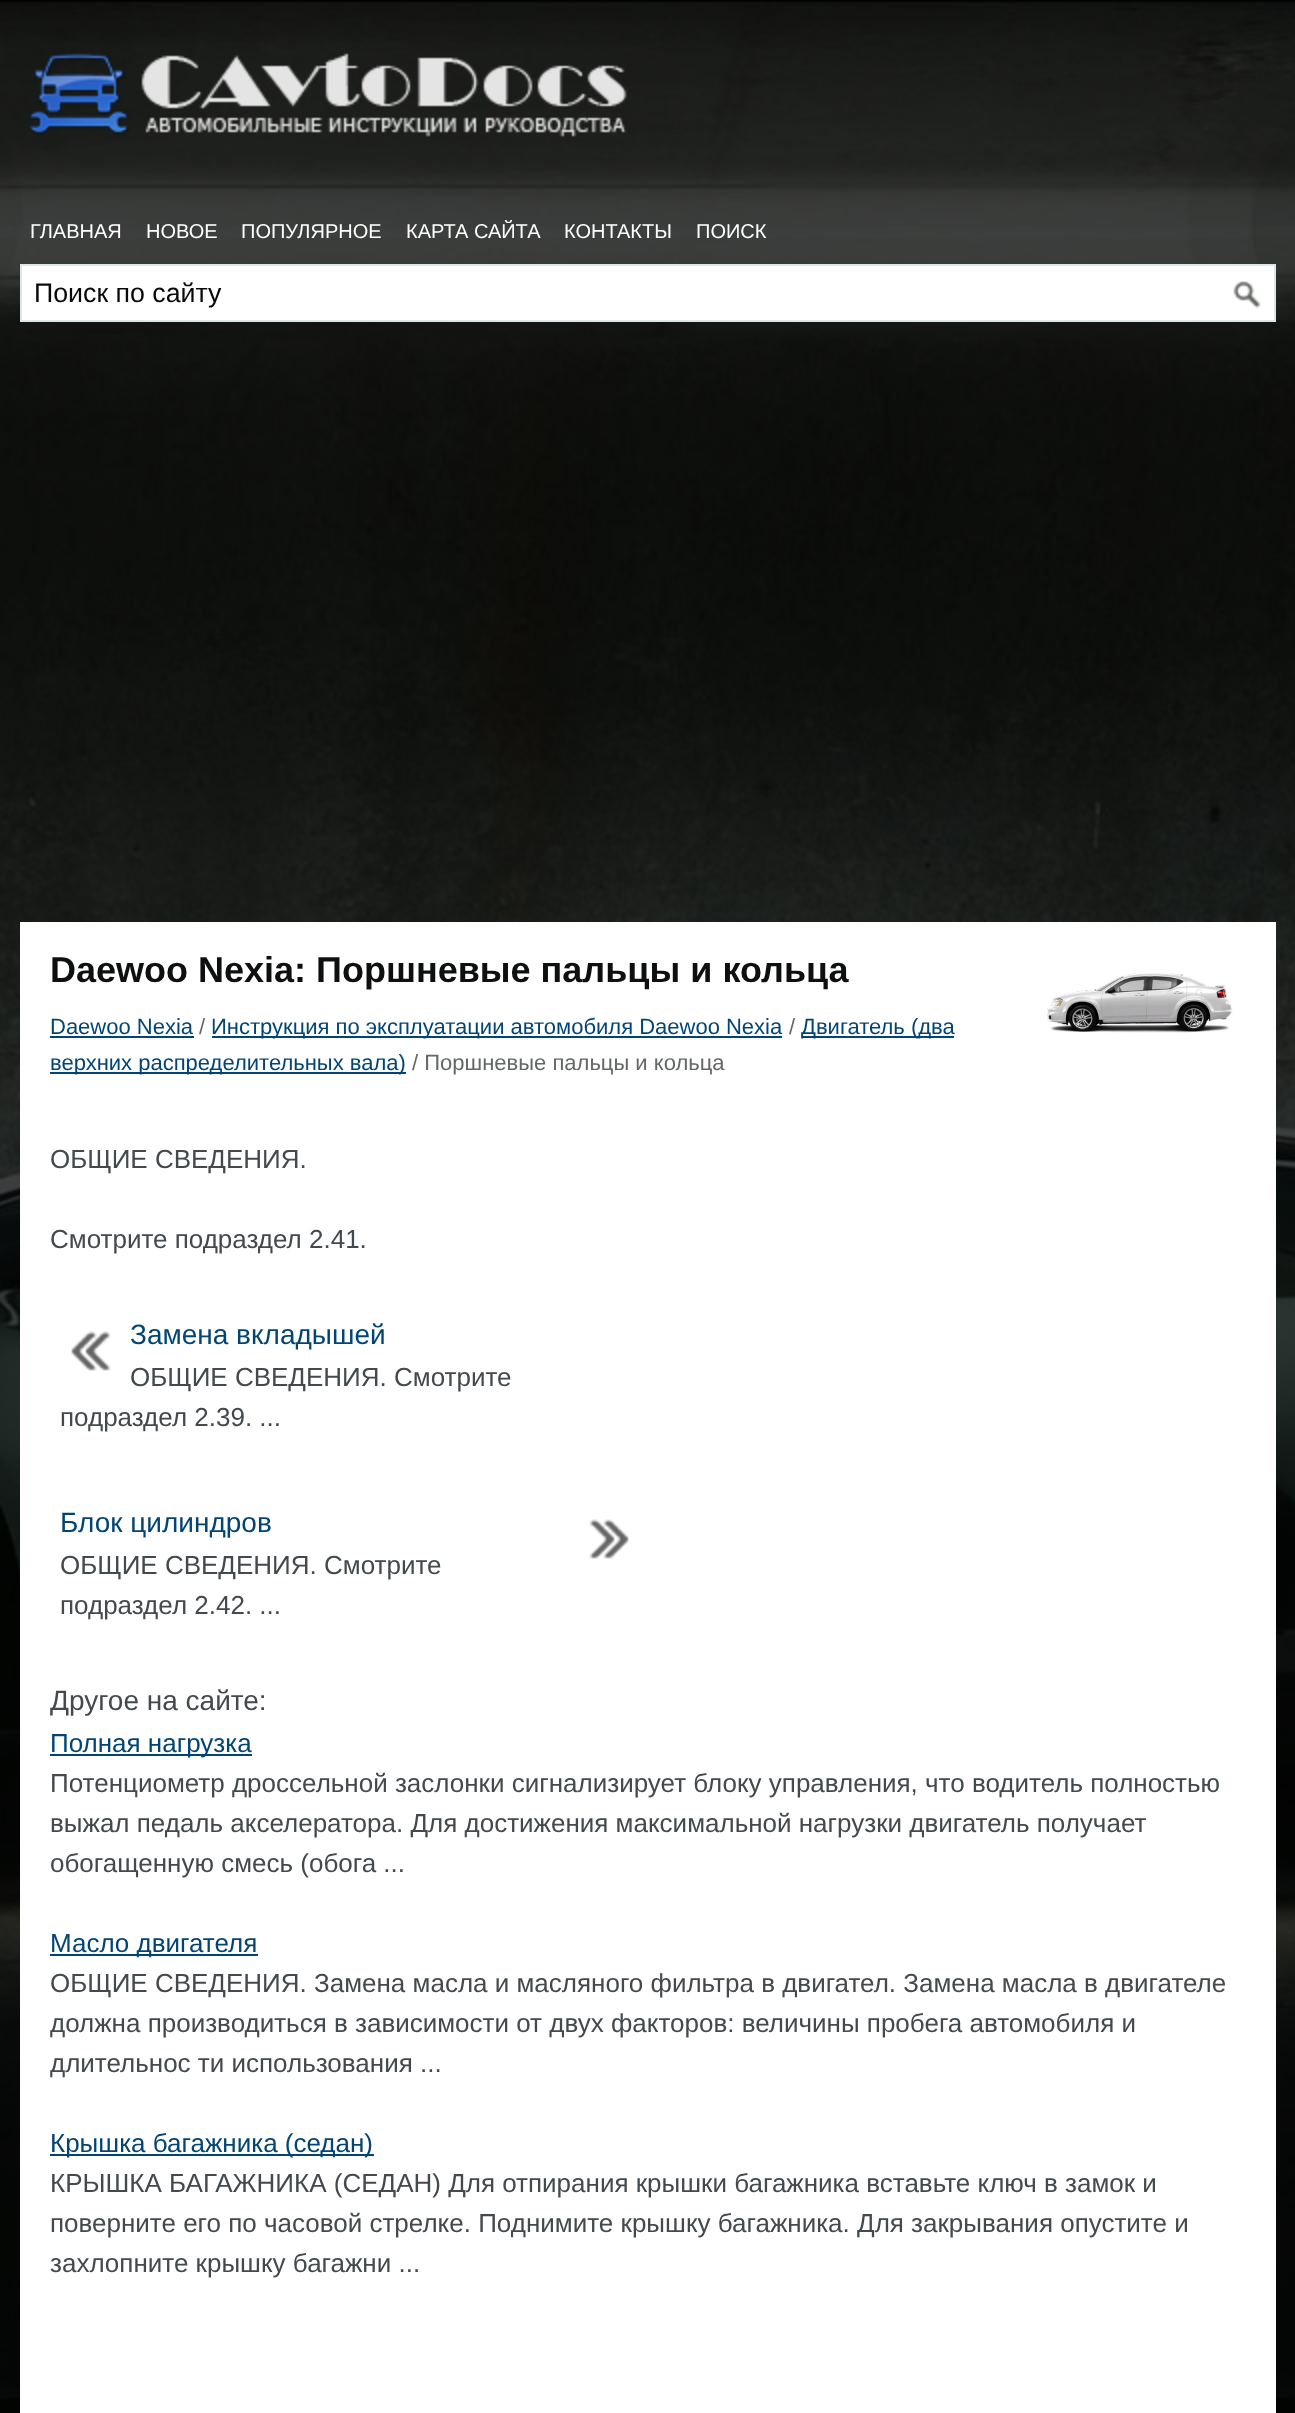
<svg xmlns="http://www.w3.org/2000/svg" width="1295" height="2413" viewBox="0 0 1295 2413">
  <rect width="100%" height="100%" fill="#020402"/>
  <image x="0" y="1" width="1295" height="2397" href="img/1.png"/>
  <image x="29" y="53" width="598" height="84" href="img/2.png"/>
  <path d="M22 266h1252v54H22z" fill="#fff"/>
  <image x="1233" y="281" width="28" height="28" href="img/3.png"/>
  <path d="M21 265h1254v56H21z" fill="none" stroke="#dde6e9" stroke-width="2"/>
  <path d="M20 922h1256v1491H20z" fill="#fff"/>
  <image x="1047" y="972" width="186" height="61" href="img/4.png"/>
  <path d="M50 1036h144v2H50z" fill="#024575"/>
  <path d="M212 1036h570v2H212z" fill="#024575"/>
  <path d="M802 1036h152v2H802z" fill="#024575"/>
  <path d="M50 1072h356v2H50z" fill="#024575"/>
  <image x="71" y="1331" width="40" height="40" href="img/5.png"/>
  <image x="589" y="1519" width="40" height="40" href="img/6.png"/>
  <path d="M50 1754h202v2H50z" fill="#024575"/>
  <path d="M50 1954h208v2H50z" fill="#024575"/>
  <path d="M50 2154h324v2H50z" fill="#024575"/>
  <g font-family="Liberation Sans" font-size="20" fill="#fff">
    <text x="30" y="238">ГЛАВНАЯ</text>
    <text x="146" y="238">НОВОЕ</text>
    <text x="241" y="238">ПОПУЛЯРНОЕ</text>
    <text x="406" y="238">КАРТА САЙТА</text>
    <text x="564" y="238">КОНТАКТЫ</text>
    <text x="696" y="238">ПОИСК</text>
  </g>
  <text x="34" y="302" font-family="Liberation Sans" font-size="26.75" fill="#080a08">Поиск по сайту</text>
  <text x="50" y="982" font-family="Liberation Sans" font-size="36" font-weight="bold" fill="#0d100f">Daewoo Nexia: Поршневые пальцы и кольца</text>
  <text x="50" y="1034" font-family="Liberation Sans" font-size="22" fill="#024575">Daewoo Nexia</text>
  <text x="199" y="1034" font-family="Liberation Sans" font-size="22" fill="#646864">/</text>
  <text x="211" y="1034" font-family="Liberation Sans" font-size="22" fill="#024575">Инструкция по эксплуатации автомобиля Daewoo Nexia</text>
  <text x="789" y="1034" font-family="Liberation Sans" font-size="22" fill="#646864">/</text>
  <g font-family="Liberation Sans" font-size="22" fill="#024575">
    <text x="801" y="1034">Двигатель (два</text>
    <text x="50" y="1070">верхних распределительных вала)</text>
  </g>
  <text x="412" y="1070" font-family="Liberation Sans" font-size="22" fill="#646864">/ Поршневые пальцы и кольца</text>
  <g font-family="Liberation Sans" font-size="26" fill="#43494c">
    <text x="50" y="1168">ОБЩИЕ СВЕДЕНИЯ.</text>
    <text x="50" y="1248">Смотрите подраздел 2.41.</text>
  </g>
  <text x="130" y="1344" font-family="Liberation Sans" font-size="28" fill="#024575">Замена вкладышей</text>
  <g font-family="Liberation Sans" font-size="26" fill="#43494c">
    <text x="130" y="1386">ОБЩИЕ СВЕДЕНИЯ. Смотрите</text>
    <text x="60" y="1426">подраздел 2.39. ...</text>
  </g>
  <text x="60" y="1532" font-family="Liberation Sans" font-size="28" fill="#024575">Блок цилиндров</text>
  <g font-family="Liberation Sans" font-size="26" fill="#43494c">
    <text x="60" y="1574">ОБЩИЕ СВЕДЕНИЯ. Смотрите</text>
    <text x="60" y="1614">подраздел 2.42. ...</text>
  </g>
  <text x="50" y="1710" font-family="Liberation Sans" font-size="28" fill="#43494c">Другое на сайте:</text>
  <text x="50" y="1752" font-family="Liberation Sans" font-size="26" fill="#024575">Полная нагрузка</text>
  <g font-family="Liberation Sans" font-size="26" fill="#43494c">
    <text x="50" y="1792">Потенциометр дроссельной заслонки сигнализирует блоку управления, что водитель полностью</text>
    <text x="50" y="1832">выжал педаль акселератора. Для достижения максимальной нагрузки двигатель получает</text>
    <text x="50" y="1872">обогащенную смесь (обога ...</text>
  </g>
  <text x="50" y="1952" font-family="Liberation Sans" font-size="26" fill="#024575">Масло двигателя</text>
  <g font-family="Liberation Sans" font-size="26" fill="#43494c">
    <text x="50" y="1992">ОБЩИЕ СВЕДЕНИЯ. Замена масла и масляного фильтра в двигател. Замена масла в двигателе</text>
    <text x="50" y="2032">должна производиться в зависимости от двух факторов: величины пробега автомобиля и</text>
    <text x="50" y="2072">длительнос ти использования ...</text>
  </g>
  <text x="50" y="2152" font-family="Liberation Sans" font-size="26" fill="#024575">Крышка багажника (седан)</text>
  <g font-family="Liberation Sans" font-size="26" fill="#43494c">
    <text x="50" y="2192">КРЫШКА БАГАЖНИКА (СЕДАН) Для отпирания крышки багажника вставьте ключ в замок и</text>
    <text x="50" y="2232">поверните его по часовой стрелке. Поднимите крышку багажника. Для закрывания опустите и</text>
    <text x="50" y="2272">захлопните крышку багажни ...</text>
  </g>
</svg>
